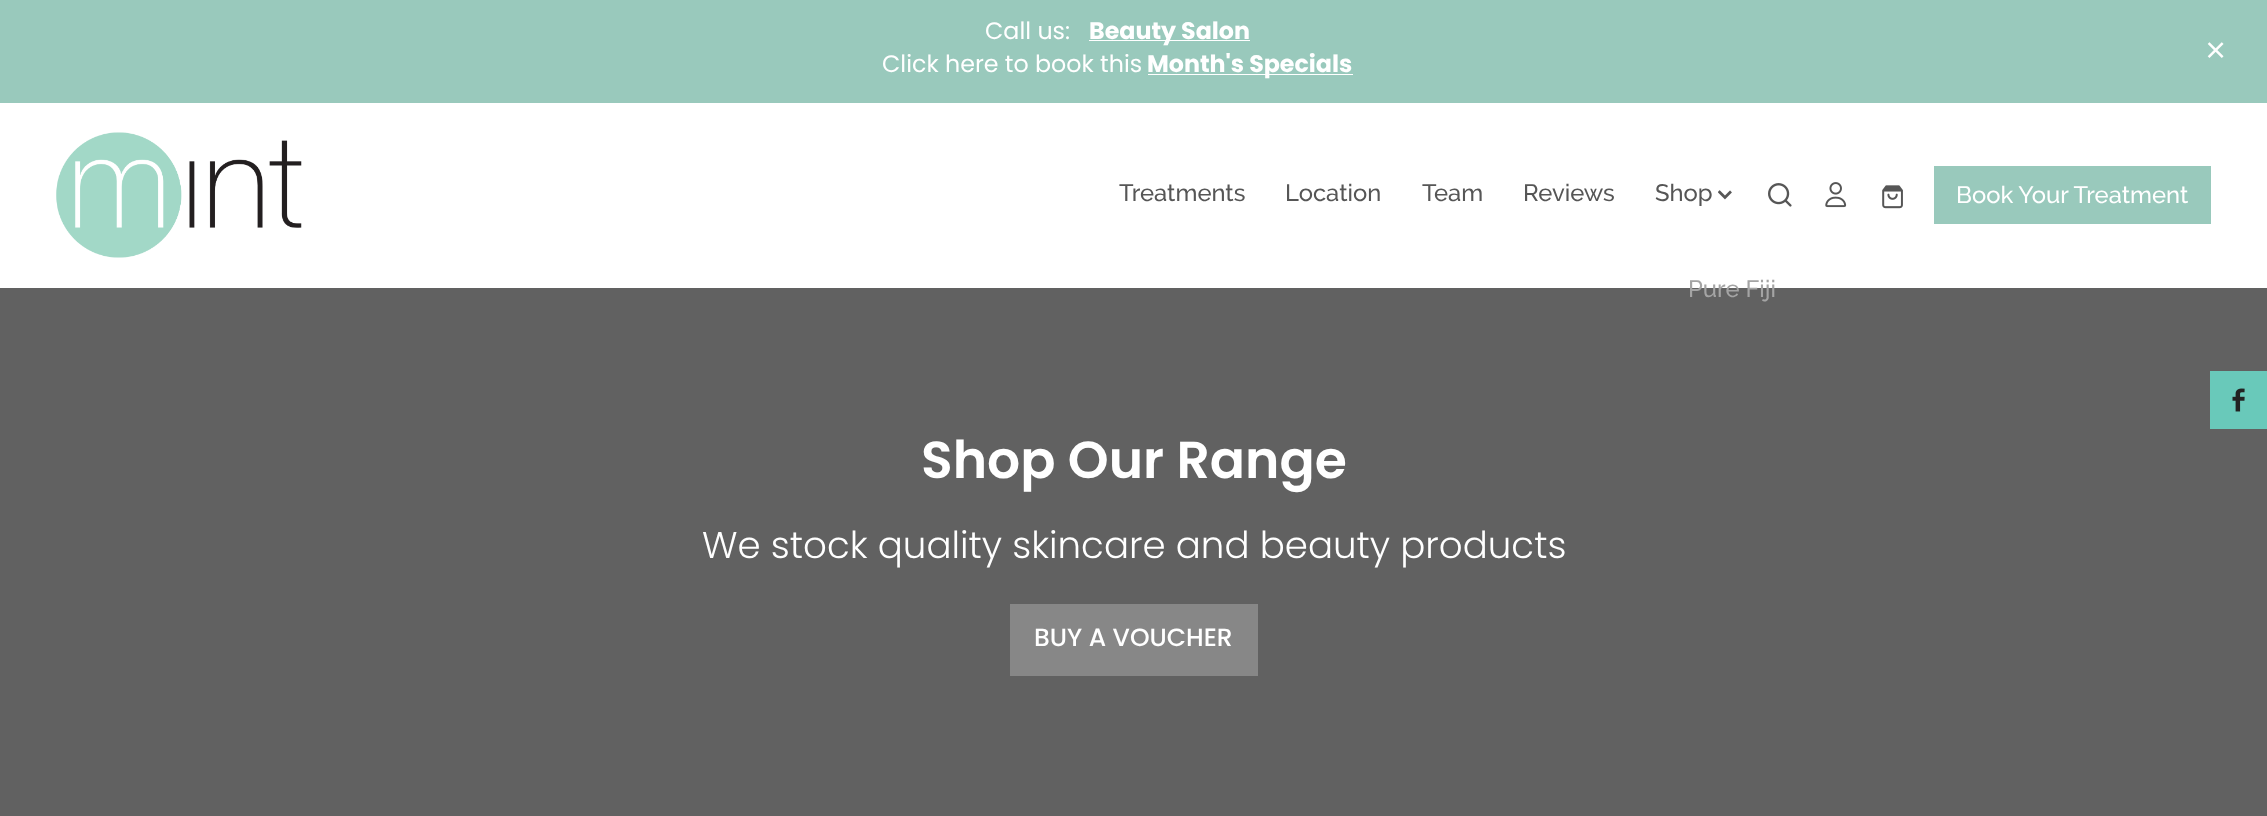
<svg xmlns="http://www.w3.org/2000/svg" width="2267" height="816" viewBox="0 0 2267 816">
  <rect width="100%" height="100%" fill="#fff"/>
  <path d="M0 0h2267v103H0z" fill="#99c9bc"/>
  <path d="M1089 40h161v1H1089z" fill="#fff"/>
  <path d="M1148 74h205v1H1148z" fill="#fff"/>
  <image x="2207" y="42" width="17" height="16" href="img/1.png"/>
  <image x="56" y="132" width="246" height="126" href="img/2.png"/>
  <image x="1718" y="190" width="14" height="10" href="img/3.png"/>
  <image x="1768" y="183" width="24" height="24" href="img/4.png"/>
  <image x="1825" y="182" width="22" height="26" href="img/5.png"/>
  <image x="1882" y="185" width="21" height="24" href="img/6.png"/>
  <path d="M1934 166h277v58H1934z" fill="#99c9bc"/>
  <path d="M0 288h2267v528H0z" fill="#616161"/>
  <path d="M1010 604h248v72H1010z" fill="#878787"/>
  <path d="M2210 371h57v58H2210z" fill="#69c9ba"/>
  <image x="2232" y="388" width="13" height="24" href="img/7.png"/>
  <text x="985" y="39" font-family="Poppins" font-size="23.75" fill="#fff">Call us:</text>
  <text x="1089" y="39" font-family="Poppins" font-size="23.75" font-weight="bold" fill="#fff">Beauty Salon</text>
  <text x="882" y="72" font-family="Poppins" font-size="23.75" fill="#fff">Click here to book this</text>
  <text x="1147" y="72" font-family="Poppins" font-size="23.75" font-weight="bold" fill="#fff">Month's Specials</text>
  <g font-family="Raleway" font-size="23.75" font-weight="500" fill="#565656">
    <text x="1119" y="201">Treatments</text>
    <text x="1285" y="201">Location</text>
    <text x="1422" y="201">Team</text>
    <text x="1523" y="201">Reviews</text>
    <text x="1655" y="201">Shop</text>
  </g>
  <text x="1688" y="297" font-family="Raleway" font-size="23.75" font-weight="500" fill="#a4a4a4">Pure Fiji</text>
  <text x="1956" y="203" font-family="Raleway" font-size="23.75" font-weight="500" fill="#fff">Book Your Treatment</text>
  <text x="921" y="478" font-family="Poppins" font-size="52" font-weight="600" fill="#fff">Shop Our Range</text>
  <text x="702" y="558" font-family="Poppins" font-size="37.2" font-weight="300" fill="#fff">We stock quality skincare and beauty products</text>
  <text x="1034" y="646" font-family="Poppins" font-size="25" font-weight="500" fill="#fff">BUY A VOUCHER</text>
</svg>
